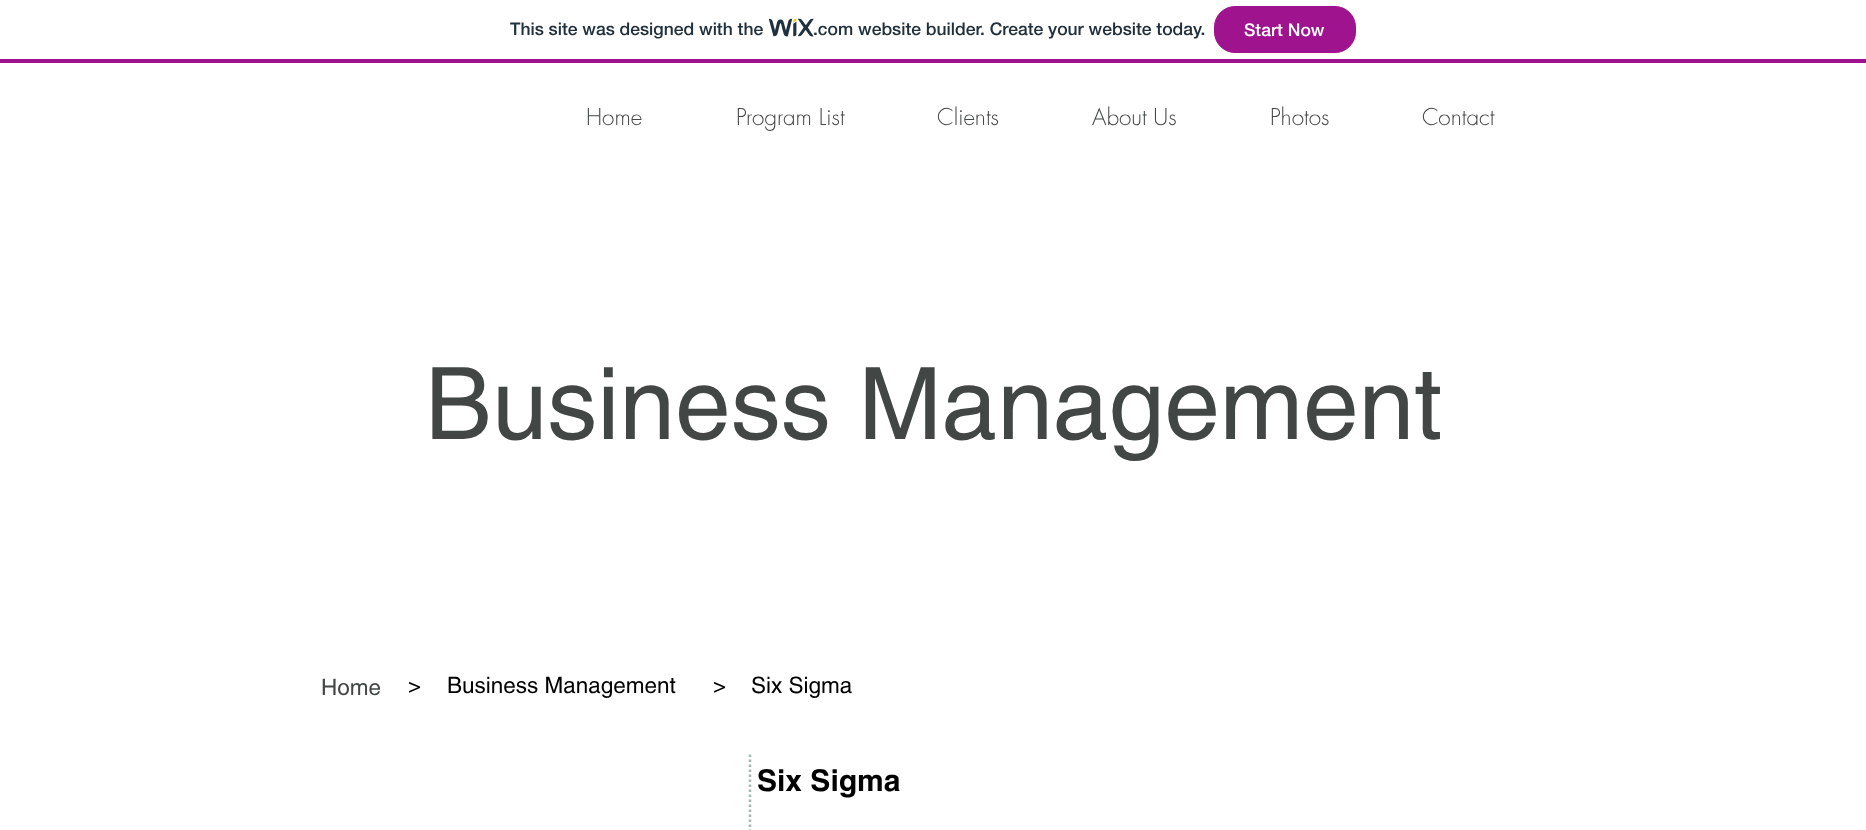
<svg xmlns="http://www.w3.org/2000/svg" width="1866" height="830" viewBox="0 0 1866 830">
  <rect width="100%" height="100%" fill="#fff"/>
  <path d="M0 59h1866v4H0z" fill="#a0138e"/>
  <image x="769" y="18" width="45" height="19" href="img/1.png"/>
  <rect x="1214.5" y="6.5" width="141" height="46" rx="20.5" fill="#a0138e" stroke="#a0138e"/>
  <path d="M750 754.5V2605.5" fill="none" stroke="#a3b8b4" stroke-width="2.5" stroke-dasharray="2.5 2.5"/>
  <g font-family="'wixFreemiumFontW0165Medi'" font-size="17.5" font-weight="500" fill="#20303c">
    <text x="510" y="35">This site was designed with the</text>
    <text x="813" y="35">.com website builder. Create your website today.</text>
  </g>
  <text x="1244" y="36" font-family="'wixFreemiumFontW0165Medi'" font-size="17.5" font-weight="500" fill="#fff">Start Now</text>
  <g font-family="futura" font-size="22.5" font-weight="300" fill="#424746">
    <text x="586" y="125">Home</text>
    <text x="736" y="125">Program List</text>
    <text x="937" y="125">Clients</text>
    <text x="1092" y="125">About Us</text>
    <text x="1270" y="125">Photos</text>
    <text x="1422" y="125">Contact</text>
  </g>
  <text x="425" y="439" font-family="helvetica" font-size="100" fill="#424746">Business Management</text>
  <text x="321" y="695" font-family="helvetica" font-size="22.5" fill="#424746">Home</text>
  <g font-family="helvetica" font-size="22.5" fill="#000">
    <text x="408" y="693">&gt;</text>
    <text x="447" y="693">Business Management</text>
    <text x="713" y="693">&gt;</text>
    <text x="751" y="693">Six Sigma</text>
  </g>
  <text x="757" y="791" font-family="helvetica" font-size="30" font-weight="bold" fill="#000">Six Sigma</text>
</svg>
